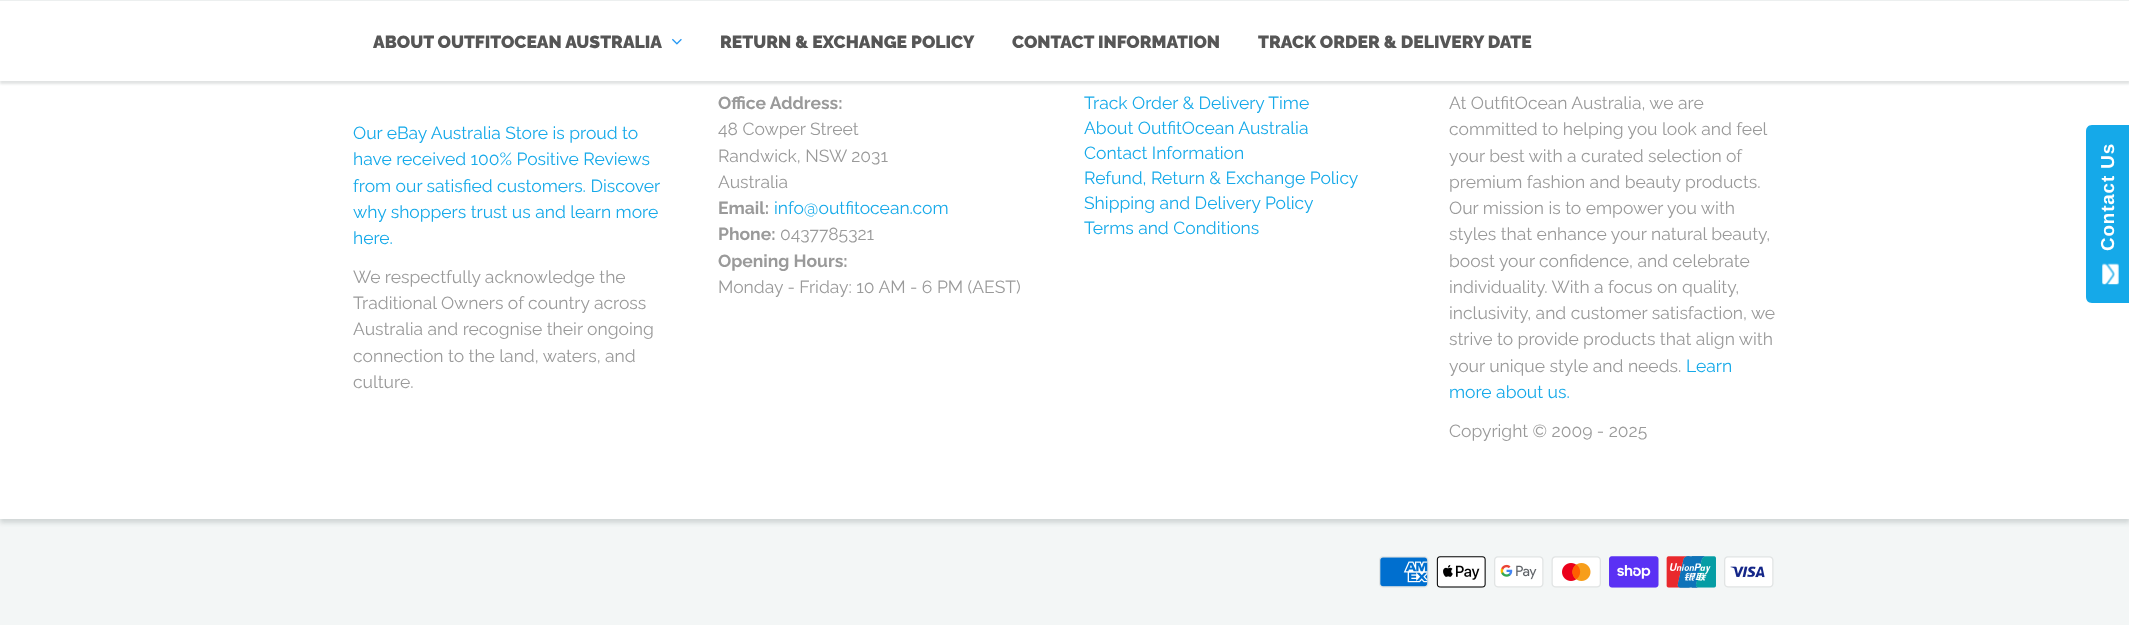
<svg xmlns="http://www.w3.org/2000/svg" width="2129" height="625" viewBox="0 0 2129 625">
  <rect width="100%" height="100%" fill="#f3f6f6"/>
  <path d="M0 -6h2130v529H0z" fill="#d1d7d7" filter="blur(2px)"/>
  <path d="M0 81h2129v438H0z" fill="#fff"/>
  <path d="M0 3h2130v81H0z" fill="#0b191c1f" filter="blur(1px)"/>
  <path d="M0 1h2129v80H0z" fill="#fff"/>
  <path d="M0 0h2129v1H0z" fill="#ecefef"/>
  <image x="672" y="38" width="10" height="7" href="img/1.png"/>
  <image x="1379" y="556" width="50" height="32" href="img/2.png"/>
  <image x="1436" y="556" width="50" height="32" href="img/3.png"/>
  <image x="1494" y="556" width="50" height="32" href="img/4.png"/>
  <image x="1551" y="556" width="50" height="32" href="img/5.png"/>
  <image x="1609" y="556" width="50" height="32" href="img/6.png"/>
  <image x="1666" y="556" width="50" height="32" href="img/7.png"/>
  <image x="1724" y="556" width="50" height="32" href="img/8.png"/>
  <path d="M2086 297V131C2086 128 2088 125 2092 125H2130V303H2092C2088 303 2086 300 2086 297Z" fill="#15a9e9"/>
  <image x="2102" y="263" width="17" height="22" href="img/9.png"/>
  <g font-family="Raleway" font-size="17.5" font-weight="900" fill="#565656">
    <text x="373" y="48">ABOUT OUTFITOCEAN AUSTRALIA</text>
    <text x="720" y="48">RETURN &amp; EXCHANGE POLICY</text>
    <text x="1012" y="48">CONTACT INFORMATION</text>
    <text x="1258" y="48">TRACK ORDER &amp; DELIVERY DATE</text>
  </g>
  <g font-family="Raleway" font-size="17.5" fill="#15a9e9">
    <text x="353" y="139">Our eBay Australia Store is proud to</text>
    <text x="353" y="165">have received 100% Positive Reviews</text>
    <text x="353" y="192">from our satisfied customers. Discover</text>
    <text x="353" y="218">why shoppers trust us and learn more</text>
    <text x="353" y="244">here.</text>
  </g>
  <g font-family="Raleway" font-size="17.5" fill="#9a9a9a">
    <text x="353" y="283">We respectfully acknowledge the</text>
    <text x="353" y="309">Traditional Owners of country across</text>
    <text x="353" y="335">Australia and recognise their ongoing</text>
    <text x="353" y="362">connection to the land, waters, and</text>
    <text x="353" y="388">culture.</text>
  </g>
  <text x="718" y="109" font-family="Raleway" font-size="17.5" font-weight="bold" fill="#9a9a9a">Office Address:</text>
  <g font-family="Raleway" font-size="17.5" fill="#9a9a9a">
    <text x="718" y="135">48 Cowper Street</text>
    <text x="718" y="162">Randwick, NSW 2031</text>
    <text x="718" y="188">Australia</text>
  </g>
  <text x="718" y="214" font-family="Raleway" font-size="17.5" font-weight="bold" fill="#9a9a9a">Email:</text>
  <text x="774" y="214" font-family="Raleway" font-size="17.5" fill="#15a9e9">info@outfitocean.com</text>
  <text x="718" y="240" font-family="Raleway" font-size="17.5" font-weight="bold" fill="#9a9a9a">Phone:</text>
  <text x="780" y="240" font-family="Raleway" font-size="17.5" fill="#9a9a9a">0437785321</text>
  <text x="718" y="267" font-family="Raleway" font-size="17.5" font-weight="bold" fill="#9a9a9a">Opening Hours:</text>
  <text x="718" y="293" font-family="Raleway" font-size="17.5" fill="#9a9a9a">Monday - Friday: 10 AM - 6 PM (AEST)</text>
  <g font-family="Raleway" font-size="17.5" fill="#15a9e9">
    <text x="1084" y="109">Track Order &amp; Delivery Time</text>
    <text x="1084" y="134">About OutfitOcean Australia</text>
    <text x="1084" y="159">Contact Information</text>
    <text x="1084" y="184">Refund, Return &amp; Exchange Policy</text>
    <text x="1084" y="209">Shipping and Delivery Policy</text>
    <text x="1084" y="234">Terms and Conditions</text>
  </g>
  <g font-family="Raleway" font-size="17.5" fill="#9a9a9a">
    <text x="1449" y="109">At OutfitOcean Australia, we are</text>
    <text x="1449" y="135">committed to helping you look and feel</text>
    <text x="1449" y="162">your best with a curated selection of</text>
    <text x="1449" y="188">premium fashion and beauty products.</text>
    <text x="1449" y="214">Our mission is to empower you with</text>
    <text x="1449" y="240">styles that enhance your natural beauty,</text>
    <text x="1449" y="267">boost your confidence, and celebrate</text>
    <text x="1449" y="293">individuality. With a focus on quality,</text>
    <text x="1449" y="319">inclusivity, and customer satisfaction, we</text>
    <text x="1449" y="345">strive to provide products that align with</text>
    <text x="1449" y="372">your unique style and needs.</text>
  </g>
  <g font-family="Raleway" font-size="17.5" fill="#15a9e9">
    <text x="1686" y="372">Learn</text>
    <text x="1449" y="398">more about us.</text>
  </g>
  <text x="1449" y="437" font-family="Raleway" font-size="17.5" fill="#9a9a9a">Copyright © 2009 - 2025</text>
  <text x="2114" y="251" transform="rotate(-90 2114 251)" font-family="Liberation Sans" font-size="18.75" font-weight="bold" letter-spacing="0.9" fill="#fff">Contact Us</text>
</svg>
